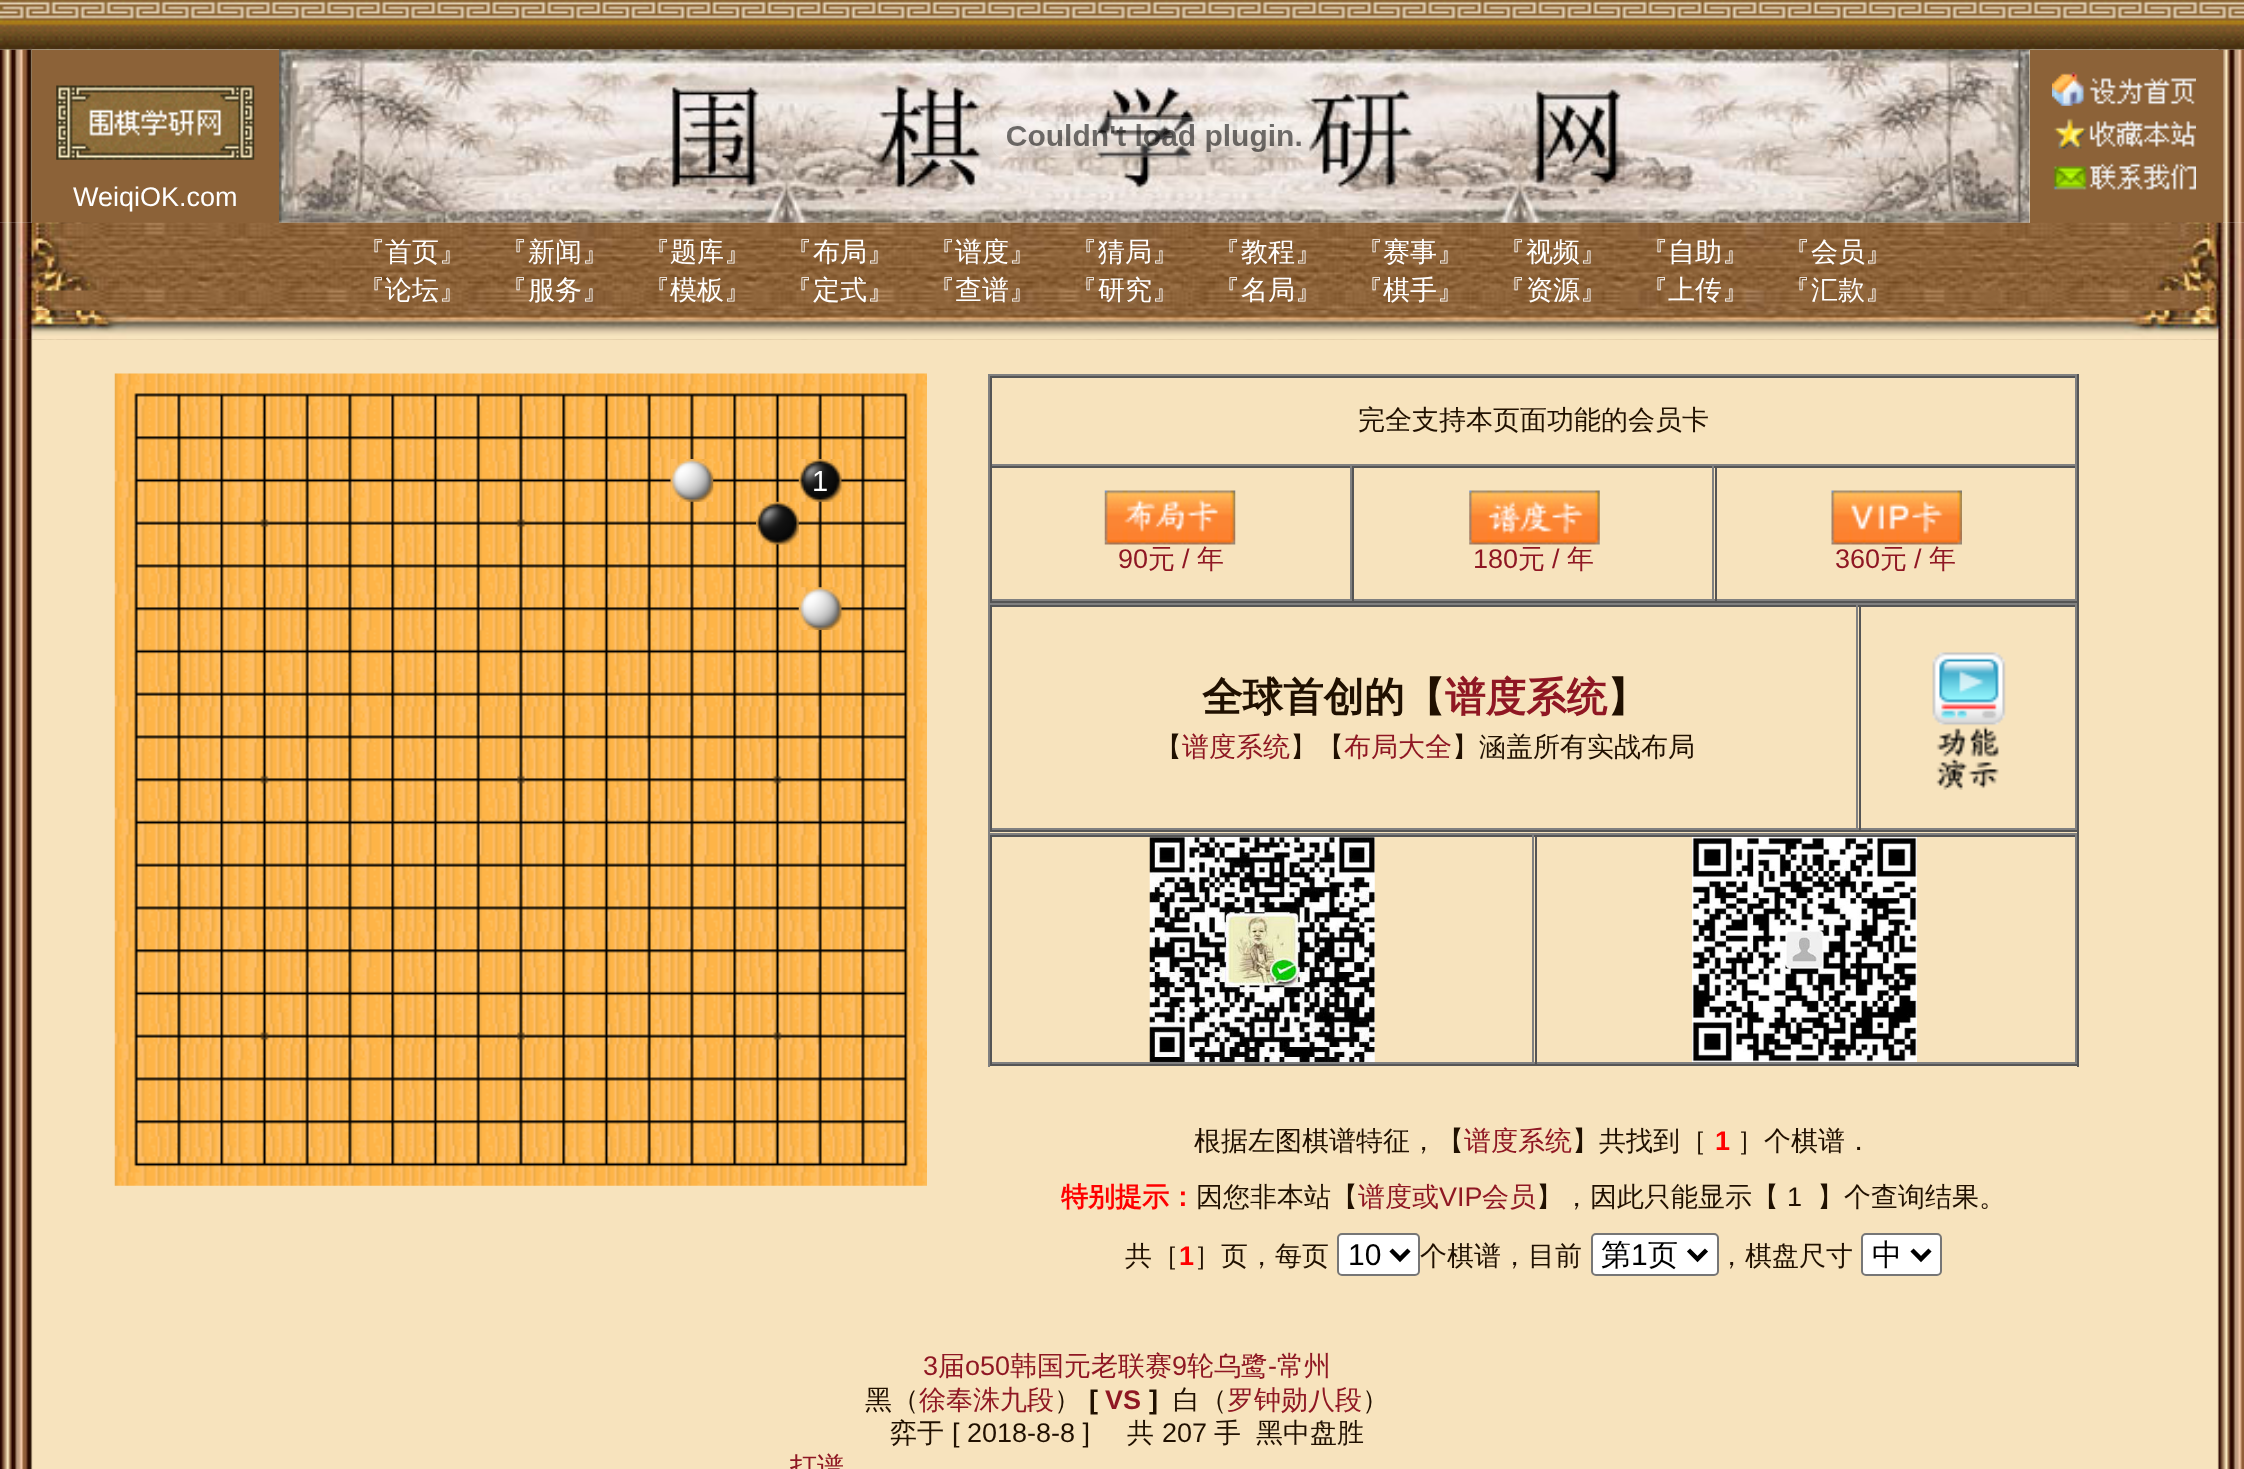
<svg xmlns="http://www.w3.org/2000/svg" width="2244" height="1469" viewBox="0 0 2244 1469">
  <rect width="100%" height="100%" fill="#fff"/>
  <image x="0" y="49" width="2244" height="174" href="img/2.png"/>
  <image x="279" y="49" width="1751" height="174" href="img/4.png"/>
  <image x="0" y="0" width="2244" height="50" href="img/1.png"/>
  <path d="M32 50h247v173H32z" fill="#8c6238"/>
  <image x="56" y="85" width="199" height="75" href="img/3.png"/>
  <image x="992" y="117" width="325" height="41" href="img/5.png"/>
  <path d="M2030 50h193v173H2030z" fill="#8c6238"/>
  <image x="2052" y="72" width="144" height="34" href="img/6.png"/>
  <image x="2053" y="118" width="143" height="31" href="img/7.png"/>
  <image x="2053" y="163" width="143" height="27" href="img/8.png"/>
  <image x="0" y="222" width="2244" height="118" href="img/9.png"/>
  <image x="0" y="339" width="2244" height="1130" href="img/11.png"/>
  <image x="0" y="310" width="2244" height="30" href="img/10.png"/>
  <image x="114" y="373" width="813" height="813" href="img/12.png"/>
  <image x="670" y="459" width="44" height="43" href="img/13.png"/>
  <image x="798" y="459" width="44" height="43" href="img/14.png"/>
  <image x="756" y="501" width="43" height="44" href="img/15.png"/>
  <image x="798" y="587" width="44" height="43" href="img/16.png"/>
  <path d="M988 374h1091v2H988z" fill="#808080"/>
  <path d="M2077 374h2v229H2077z" fill="#555"/>
  <path d="M988 601h1091v2H988z" fill="#555"/>
  <path d="M988 374h2v229H988z" fill="#808080"/>
  <path d="M990 376h1087v2H990z" fill="#555"/>
  <path d="M2075 376h2v90H2075z" fill="#808080"/>
  <path d="M990 464h1087v2H990z" fill="#808080"/>
  <path d="M990 376h2v90H990z" fill="#555"/>
  <path d="M990 466h1087v2H990z" fill="#555"/>
  <path d="M1350 466h2v135H1350z" fill="#808080"/>
  <path d="M990 599h362v2H990z" fill="#808080"/>
  <path d="M990 466h2v135H990z" fill="#555"/>
  <image x="1104" y="490" width="132" height="55" href="img/17.png"/>
  <path d="M1712 466h2v135H1712z" fill="#808080"/>
  <path d="M1352 599h363v2H1352z" fill="#808080"/>
  <path d="M1352 466h2v135H1352z" fill="#555"/>
  <image x="1469" y="490" width="131" height="55" href="img/18.png"/>
  <path d="M2075 466h2v135H2075z" fill="#808080"/>
  <path d="M1715 599h362v2H1715z" fill="#808080"/>
  <path d="M1715 466h2v135H1715z" fill="#555"/>
  <image x="1831" y="490" width="131" height="55" href="img/19.png"/>
  <path d="M988 603h1091v2H988z" fill="#808080"/>
  <path d="M2077 603h2v230H2077z" fill="#555"/>
  <path d="M988 830h1091v2H988z" fill="#555"/>
  <path d="M988 603h2v230H988z" fill="#808080"/>
  <path d="M990 605h1087v2H990z" fill="#555"/>
  <path d="M1856 605h2v225H1856z" fill="#808080"/>
  <path d="M990 828h869v2H990z" fill="#808080"/>
  <path d="M990 605h2v225H990z" fill="#555"/>
  <path d="M2075 605h2v225H2075z" fill="#808080"/>
  <path d="M1859 828h218v2H1859z" fill="#808080"/>
  <path d="M1859 605h2v225H1859z" fill="#555"/>
  <image x="1932" y="652" width="74" height="138" href="img/20.png"/>
  <path d="M988 833h1091v2H988z" fill="#808080"/>
  <path d="M2077 833h2v234H2077z" fill="#555"/>
  <path d="M988 1064h1091v2H988z" fill="#555"/>
  <path d="M988 833h2v234H988z" fill="#808080"/>
  <path d="M990 835h1087v2H990z" fill="#555"/>
  <path d="M1532 835h2v229H1532z" fill="#808080"/>
  <path d="M990 1062h545v2H990z" fill="#808080"/>
  <path d="M990 835h2v229H990z" fill="#555"/>
  <image x="1149" y="837" width="226" height="225" href="img/21.png"/>
  <path d="M2075 835h2v229H2075z" fill="#808080"/>
  <path d="M1535 1062h542v2H1535z" fill="#808080"/>
  <path d="M1535 835h2v229H1535z" fill="#555"/>
  <image x="1692" y="837" width="225" height="225" href="img/22.png"/>
  <rect x="1338" y="1234" width="81" height="41" rx="4" fill="#fff" stroke="#767676" stroke-width="2"/>
  <path d="M1391 1250L1400 1259L1409 1250" fill="none" stroke="#000" stroke-width="4.5"/>
  <rect x="1592" y="1234" width="126" height="41" rx="4" fill="#fff" stroke="#767676" stroke-width="2"/>
  <path d="M1688.5 1250L1697.5 1259L1706.5 1250" fill="none" stroke="#000" stroke-width="4.5"/>
  <rect x="1862" y="1234" width="79" height="41" rx="4" fill="#fff" stroke="#767676" stroke-width="2"/>
  <path d="M1912 1250L1921 1259L1930 1250" fill="none" stroke="#000" stroke-width="4.5"/>
  <text x="73" y="206" font-family="Liberation Sans" font-size="27" fill="#fff">WeiqiOK.com</text>
  <g font-family="WenQuanYi Zen Hei" font-size="27" font-weight="500" fill="#fff">
    <text x="358" y="261">『首页</text>
    <text x="439" y="261" word-spacing="-1">』　 『</text>
    <text x="528" y="261">新闻</text>
    <text x="582" y="261" word-spacing="-1">』　 『</text>
    <text x="670" y="261">题库</text>
    <text x="724" y="261" word-spacing="-1">』　 『</text>
    <text x="813" y="261">布局</text>
    <text x="867" y="261" word-spacing="-1">』　 『</text>
    <text x="955" y="261">谱度</text>
    <text x="1009" y="261" word-spacing="-1">』　 『</text>
    <text x="1098" y="261">猜局</text>
    <text x="1152" y="261" word-spacing="-1">』　 『</text>
    <text x="1241" y="261">教程</text>
    <text x="1295" y="261" word-spacing="-1">』　 『</text>
    <text x="1383" y="261">赛事</text>
    <text x="1437" y="261" word-spacing="-1">』　 『</text>
    <text x="1526" y="261">视频</text>
    <text x="1580" y="261" word-spacing="-1">』　 『</text>
    <text x="1668" y="261">自助</text>
    <text x="1722" y="261" word-spacing="-1">』　 『</text>
    <text x="1811" y="261">会员』</text>
    <text x="358" y="299">『论坛</text>
    <text x="439" y="299" word-spacing="-1">』　 『</text>
    <text x="528" y="299">服务</text>
    <text x="582" y="299" word-spacing="-1">』　 『</text>
    <text x="670" y="299">模板</text>
    <text x="724" y="299" word-spacing="-1">』　 『</text>
    <text x="813" y="299">定式</text>
    <text x="867" y="299" word-spacing="-1">』　 『</text>
    <text x="955" y="299">查谱</text>
    <text x="1009" y="299" word-spacing="-1">』　 『</text>
    <text x="1098" y="299">研究</text>
    <text x="1152" y="299" word-spacing="-1">』　 『</text>
    <text x="1241" y="299">名局</text>
    <text x="1295" y="299" word-spacing="-1">』　 『</text>
    <text x="1383" y="299">棋手</text>
    <text x="1437" y="299" word-spacing="-1">』　 『</text>
    <text x="1526" y="299">资源</text>
    <text x="1580" y="299" word-spacing="-1">』　 『</text>
    <text x="1668" y="299">上传</text>
    <text x="1722" y="299" word-spacing="-1">』　 『</text>
    <text x="1811" y="299">汇款』</text>
  </g>
  <text x="812" y="491" font-family="Liberation Sans" font-size="29" fill="#fff">1</text>
  <text x="1358" y="429" font-family="WenQuanYi Zen Hei" font-size="27" font-weight="500" fill="#201000">完全支持本页面功能的会员卡</text>
  <text x="1118" y="568" font-family="Liberation Sans" font-size="27" fill="#8f1723">90</text>
  <text x="1148" y="568" font-family="WenQuanYi Zen Hei" font-size="27" font-weight="500" fill="#8f1723">元</text>
  <text x="1182" y="568" font-family="Liberation Sans" font-size="27" fill="#8f1723">/</text>
  <text x="1197" y="568" font-family="WenQuanYi Zen Hei" font-size="27" font-weight="500" fill="#8f1723">年</text>
  <text x="1473" y="568" font-family="Liberation Sans" font-size="27" fill="#8f1723">180</text>
  <text x="1518" y="568" font-family="WenQuanYi Zen Hei" font-size="27" font-weight="500" fill="#8f1723">元</text>
  <text x="1552" y="568" font-family="Liberation Sans" font-size="27" fill="#8f1723">/</text>
  <text x="1567" y="568" font-family="WenQuanYi Zen Hei" font-size="27" font-weight="500" fill="#8f1723">年</text>
  <text x="1835" y="568" font-family="Liberation Sans" font-size="27" fill="#8f1723">360</text>
  <text x="1880" y="568" font-family="WenQuanYi Zen Hei" font-size="27" font-weight="500" fill="#8f1723">元</text>
  <text x="1914" y="568" font-family="Liberation Sans" font-size="27" fill="#8f1723">/</text>
  <text x="1929" y="568" font-family="WenQuanYi Zen Hei" font-size="27" font-weight="500" fill="#8f1723">年</text>
  <text x="1202" y="711" font-family="WenQuanYi Zen Hei" font-size="40.5" font-weight="bold" fill="#201000">全球首创的【</text>
  <text x="1445" y="711" font-family="WenQuanYi Zen Hei" font-size="40.5" font-weight="bold" fill="#8f1723">谱度系统</text>
  <text x="1607" y="711" font-family="WenQuanYi Zen Hei" font-size="40.5" font-weight="bold" fill="#201000">】</text>
  <text x="1155" y="756" font-family="WenQuanYi Zen Hei" font-size="27" font-weight="500" fill="#201000">【</text>
  <text x="1182" y="756" font-family="WenQuanYi Zen Hei" font-size="27" font-weight="500" fill="#8f1723">谱度系统</text>
  <text x="1290" y="756" font-family="WenQuanYi Zen Hei" font-size="27" font-weight="500" fill="#201000">】【</text>
  <text x="1344" y="756" font-family="WenQuanYi Zen Hei" font-size="27" font-weight="500" fill="#8f1723">布局大全</text>
  <g font-family="WenQuanYi Zen Hei" font-size="27" font-weight="500" fill="#201000">
    <text x="1452" y="756">】涵盖所有实战布局</text>
    <text x="1194" y="1150">根据左图棋谱特征，【</text>
  </g>
  <text x="1464" y="1150" font-family="WenQuanYi Zen Hei" font-size="27" font-weight="500" fill="#8f1723">谱度系统</text>
  <text x="1572" y="1150" font-family="WenQuanYi Zen Hei" font-size="27" font-weight="500" fill="#201000">】共找到［</text>
  <text x="1715" y="1150" font-family="Liberation Sans" font-size="27" font-weight="bold" fill="#f00">1</text>
  <text x="1737" y="1150" font-family="WenQuanYi Zen Hei" font-size="27" font-weight="500" fill="#201000">］个棋谱．</text>
  <text x="1061" y="1206" font-family="WenQuanYi Zen Hei" font-size="27" font-weight="bold" fill="#f00">特别提示：</text>
  <text x="1196" y="1206" font-family="WenQuanYi Zen Hei" font-size="27" font-weight="500" fill="#201000">因您非本站【</text>
  <text x="1358" y="1206" font-family="WenQuanYi Zen Hei" font-size="27" font-weight="500" fill="#8f1723">谱度或</text>
  <text x="1439" y="1206" font-family="Liberation Sans" font-size="27" fill="#8f1723">VIP</text>
  <text x="1482" y="1206" font-family="WenQuanYi Zen Hei" font-size="27" font-weight="500" fill="#8f1723">会员</text>
  <text x="1536" y="1206" font-family="WenQuanYi Zen Hei" font-size="27" font-weight="500" fill="#201000">】，因此只能显示【</text>
  <text x="1787" y="1206" font-family="Liberation Sans" font-size="27" fill="#201000">1</text>
  <g font-family="WenQuanYi Zen Hei" font-size="27" font-weight="500" fill="#201000">
    <text x="1817" y="1206">】个查询结果。</text>
    <text x="1125" y="1265">共［</text>
  </g>
  <text x="1179" y="1265" font-family="Liberation Sans" font-size="27" font-weight="bold" fill="#f00">1</text>
  <text x="1194" y="1265" font-family="WenQuanYi Zen Hei" font-size="27" font-weight="500" fill="#201000">］页，每页</text>
  <text x="1348" y="1265" font-family="Liberation Sans" font-size="30" fill="#000">10</text>
  <text x="1420" y="1265" font-family="WenQuanYi Zen Hei" font-size="27" font-weight="500" fill="#201000">个棋谱，目前</text>
  <text x="1601" y="1265" font-family="WenQuanYi Zen Hei" font-size="30" font-weight="500" fill="#000">第</text>
  <text x="1631" y="1265" font-family="Liberation Sans" font-size="30" fill="#000">1</text>
  <text x="1648" y="1265" font-family="WenQuanYi Zen Hei" font-size="30" font-weight="500" fill="#000">页</text>
  <text x="1718" y="1265" font-family="WenQuanYi Zen Hei" font-size="27" font-weight="500" fill="#201000">，棋盘尺寸</text>
  <text x="1872" y="1265" font-family="WenQuanYi Zen Hei" font-size="30" font-weight="500" fill="#000">中</text>
  <text x="923" y="1375" font-family="Liberation Sans" font-size="27" fill="#8f1723">3</text>
  <text x="938" y="1375" font-family="WenQuanYi Zen Hei" font-size="27" font-weight="500" fill="#8f1723">届</text>
  <text x="965" y="1375" font-family="Liberation Sans" font-size="27" fill="#8f1723">o50</text>
  <text x="1010" y="1375" font-family="WenQuanYi Zen Hei" font-size="27" font-weight="500" fill="#8f1723">韩国元老联赛</text>
  <text x="1172" y="1375" font-family="Liberation Sans" font-size="27" fill="#8f1723">9</text>
  <text x="1187" y="1375" font-family="WenQuanYi Zen Hei" font-size="27" font-weight="500" fill="#8f1723">轮乌鹭</text>
  <text x="1268" y="1375" font-family="Liberation Sans" font-size="27" fill="#8f1723">-</text>
  <text x="1277" y="1375" font-family="WenQuanYi Zen Hei" font-size="27" font-weight="500" fill="#8f1723">常州</text>
  <text x="865" y="1409" font-family="WenQuanYi Zen Hei" font-size="27" font-weight="500" fill="#201000">黑（</text>
  <text x="919" y="1409" font-family="WenQuanYi Zen Hei" font-size="27" font-weight="500" fill="#8f1723">徐奉洙九段</text>
  <text x="1054" y="1409" font-family="WenQuanYi Zen Hei" font-size="27" font-weight="500" fill="#201000">）</text>
  <text x="1089" y="1409" font-family="Liberation Sans" font-size="27" font-weight="bold" fill="#201000">[</text>
  <text x="1105" y="1409" font-family="Liberation Sans" font-size="27" font-weight="bold" fill="#8f1723">VS</text>
  <text x="1149" y="1409" font-family="Liberation Sans" font-size="27" font-weight="bold" fill="#201000">]</text>
  <text x="1173" y="1409" font-family="WenQuanYi Zen Hei" font-size="27" font-weight="500" fill="#201000">白（</text>
  <text x="1227" y="1409" font-family="WenQuanYi Zen Hei" font-size="27" font-weight="500" fill="#8f1723">罗钟勋八段</text>
  <g font-family="WenQuanYi Zen Hei" font-size="27" font-weight="500" fill="#201000">
    <text x="1362" y="1409">）</text>
    <text x="890" y="1442">弈于</text>
  </g>
  <text x="952" y="1442" font-family="Liberation Sans" font-size="27" fill="#201000">[ 2018-8-8 ]</text>
  <text x="1127" y="1442" font-family="WenQuanYi Zen Hei" font-size="27" font-weight="500" fill="#201000">共</text>
  <text x="1162" y="1442" font-family="Liberation Sans" font-size="27" fill="#201000">207</text>
  <g font-family="WenQuanYi Zen Hei" font-size="27" font-weight="500" fill="#201000">
    <text x="1214" y="1442">手</text>
    <text x="1256" y="1442">黑中盘胜</text>
  </g>
  <text x="790" y="1476" font-family="WenQuanYi Zen Hei" font-size="27" font-weight="500" fill="#8f1723">打谱</text>
</svg>
